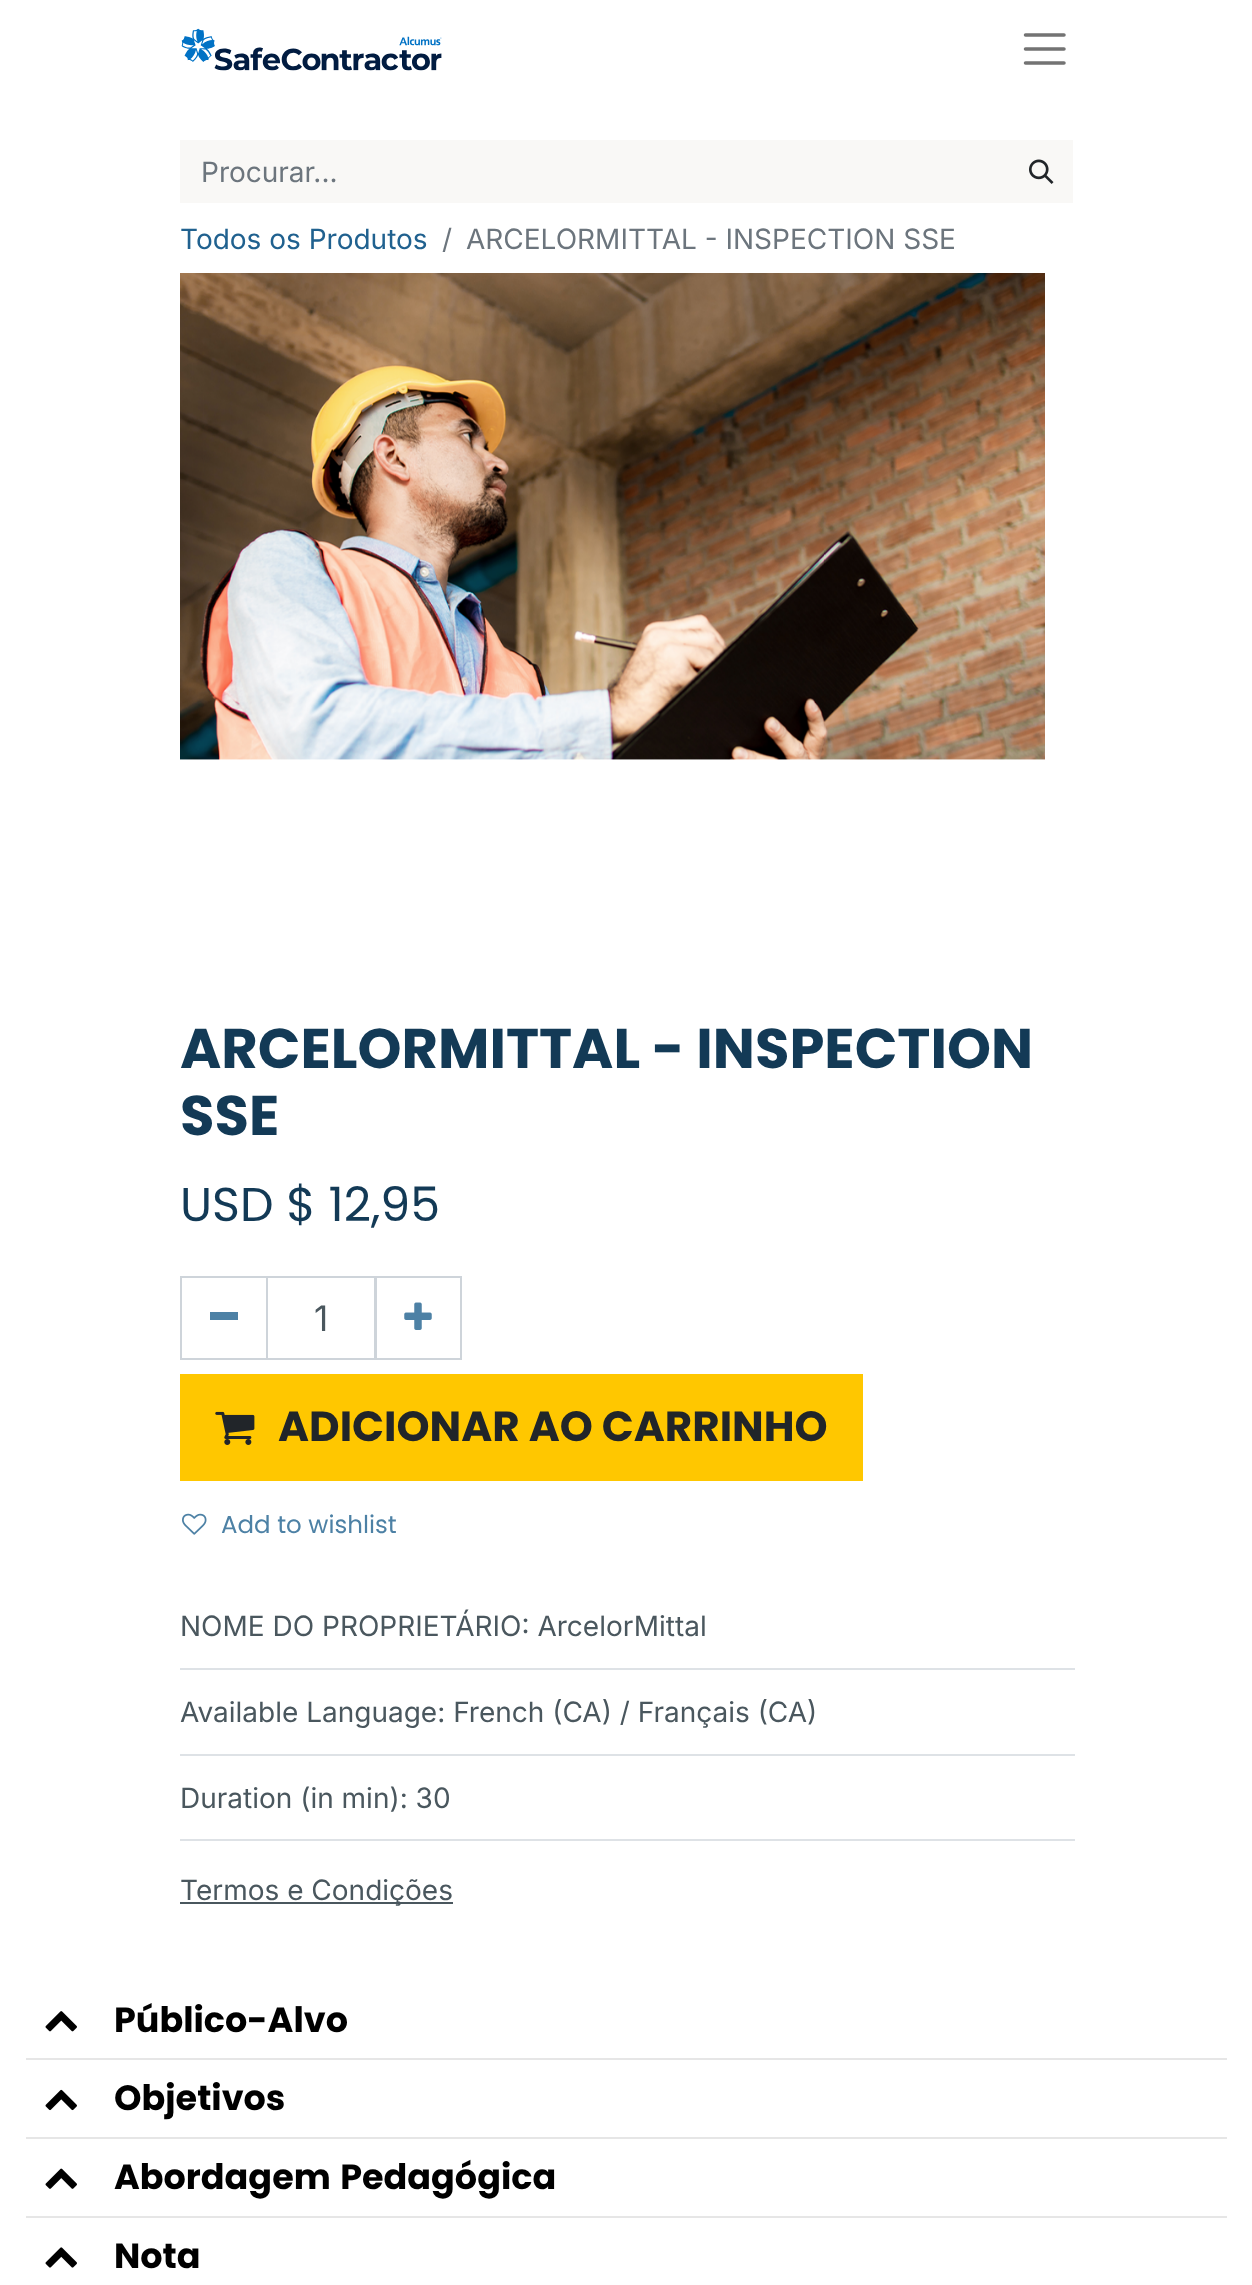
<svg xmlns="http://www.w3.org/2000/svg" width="1252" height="2285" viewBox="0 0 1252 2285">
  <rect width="100%" height="100%" fill="#fff"/>
  <image x="181" y="28" width="261" height="43" href="img/1.png"/>
  <path d="M1025.5 35H1064M1025.5 49H1064M1025.5 63H1064" fill="none" stroke="#737373" stroke-width="3.5" stroke-linecap="round"/>
  <path d="M180 140h893v63H180z" fill="#f9f8f6"/>
  <image x="1029" y="159" width="25" height="25" href="img/2.png"/>
  <image x="180" y="273" width="865" height="487" href="img/3.png"/>
  <path d="M267 1277h108v82H267z" fill="none" stroke="#ced4da" stroke-width="2"/>
  <path d="M181 1277h86v82H181z" fill="none" stroke="#ced4da" stroke-width="2"/>
  <path d="M210 1312h28v8H210z" fill="#4d81a5"/>
  <path d="M376 1277h85v82H376z" fill="none" stroke="#ced4da" stroke-width="2"/>
  <image x="404" y="1302" width="28" height="28" href="img/4.png"/>
  <path d="M180 1374h683v107H180z" fill="#ffc700"/>
  <image x="215" y="1411" width="40" height="34" href="img/5.png"/>
  <image x="182" y="1513" width="25" height="22" href="img/6.png"/>
  <path d="M180 1668h895v2H180z" fill="#dee2e6"/>
  <path d="M180 1754h895v2H180z" fill="#dee2e6"/>
  <path d="M180 1839h895v2H180z" fill="#dee2e6"/>
  <path d="M180 1902h273v2H180z" fill="#4a575e"/>
  <path d="M26 2058h1201v2H26z" fill="#e6e6e6"/>
  <image x="45" y="2011" width="32" height="21" href="img/7.png"/>
  <path d="M26 2137h1201v2H26z" fill="#e6e6e6"/>
  <image x="45" y="2089" width="32" height="22" href="img/8.png"/>
  <path d="M26 2216h1201v2H26z" fill="#e6e6e6"/>
  <image x="45" y="2168" width="32" height="21" href="img/9.png"/>
  <image x="45" y="2247" width="32" height="21" href="img/10.png"/>
  <text x="201" y="182" font-family="Inter" font-size="28" fill="#6c757d">Procurar...</text>
  <text x="180" y="249" font-family="Inter" font-size="28" fill="#20618f">Todos os Produtos</text>
  <g font-family="Inter" font-size="28" fill="#6c757d">
    <text x="442" y="249">/</text>
    <text x="466" y="249">ARCELORMITTAL - INSPECTION SSE</text>
  </g>
  <g font-family="Poppins" font-size="56" font-weight="bold" fill="#133a56">
    <text x="180" y="1068">ARCELORMITTAL - INSPECTION</text>
    <text x="180" y="1135">SSE</text>
  </g>
  <text x="180" y="1221" font-family="Poppins" font-size="47.5" fill="#133a56">USD $ 12,95</text>
  <text x="314" y="1331" font-family="Inter" font-size="35" fill="#4a575e">1</text>
  <text x="278" y="1441" font-family="Poppins" font-size="42.1" font-weight="bold" fill="#212529">ADICIONAR AO CARRINHO</text>
  <text x="221" y="1533" font-family="Poppins" font-size="24.5" fill="#4d81a5">Add to wishlist</text>
  <g font-family="Inter" font-size="28" fill="#4a575e">
    <text x="180" y="1636">NOME DO PROPRIETÁRIO: ArcelorMittal</text>
    <text x="180" y="1722">Available Language: French (CA) / Français (CA)</text>
    <text x="180" y="1808">Duration (in min): 30</text>
    <text x="180" y="1900">Termos e Condições</text>
  </g>
  <g font-family="Poppins" font-size="35" font-weight="bold" fill="#000">
    <text x="114" y="2032">Público-Alvo</text>
    <text x="114" y="2110">Objetivos</text>
    <text x="114" y="2189" word-spacing="2">Abordagem Pedagógica</text>
    <text x="114" y="2268">Nota</text>
  </g>
</svg>
